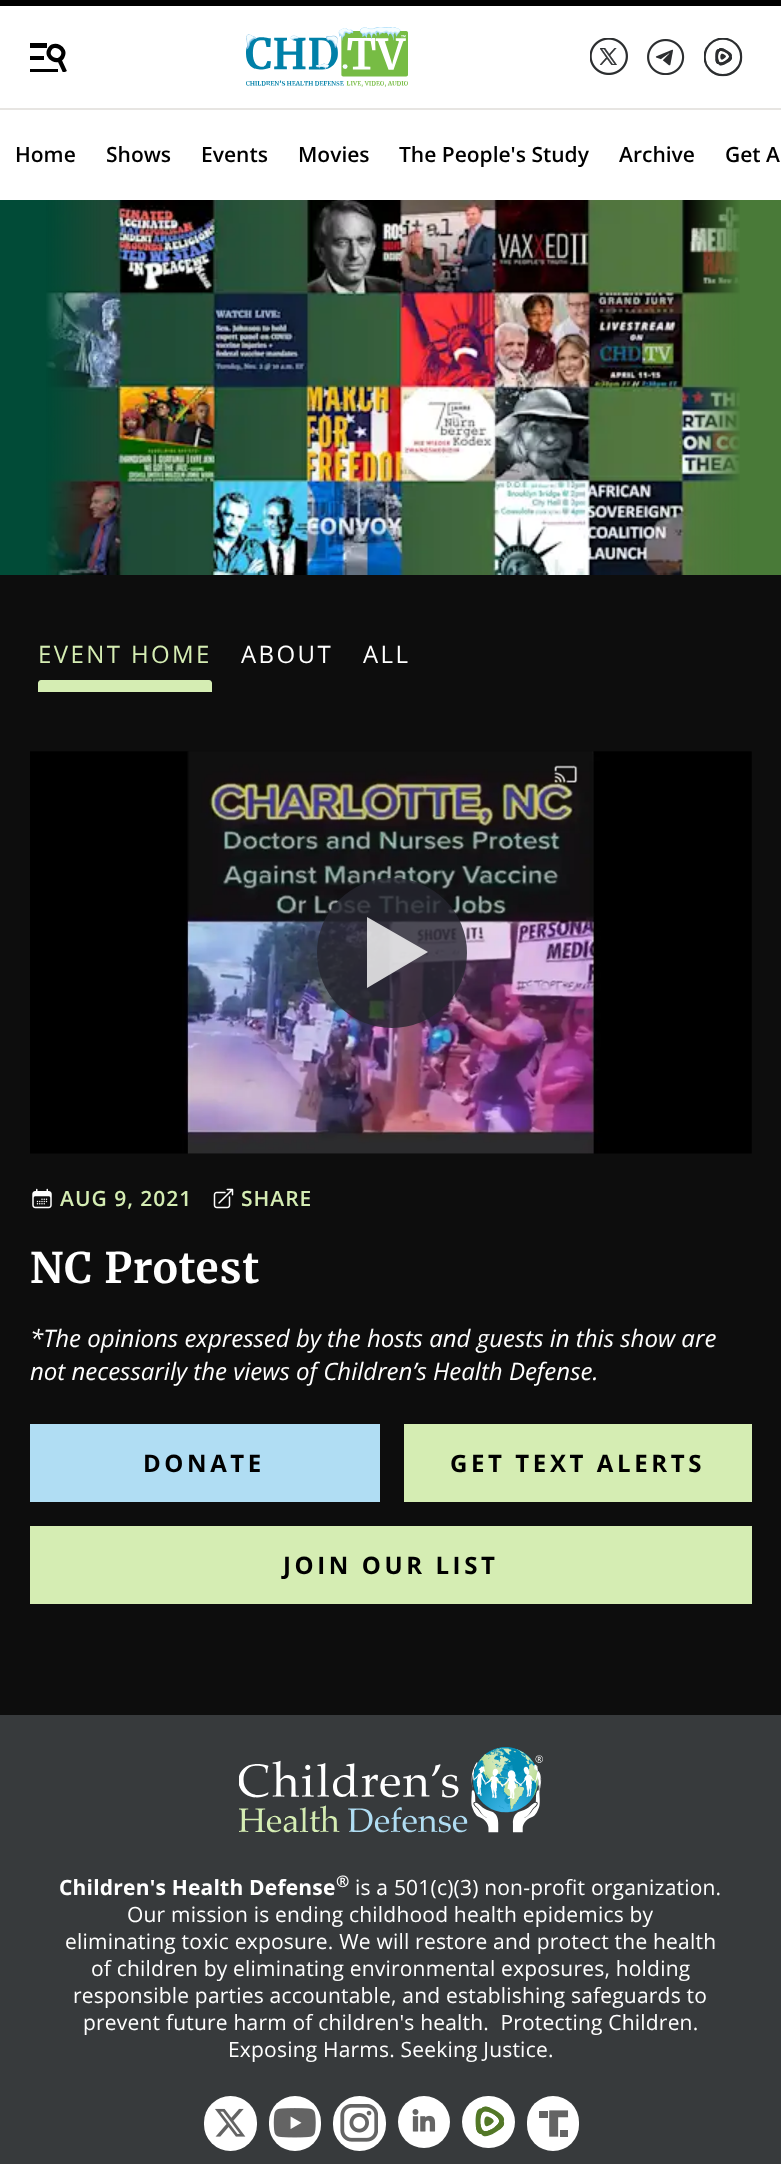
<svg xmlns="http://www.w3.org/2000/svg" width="781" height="2164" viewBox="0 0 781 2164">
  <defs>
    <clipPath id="clip1"><path d="M30 41h44v31H30z"/></clipPath>
  </defs>
  <rect width="100%" height="100%" fill="#fff"/>
  <path d="M0 0h781v6H0z" fill="#000"/>
  <path d="M0 108h781v2H0z" fill="#e7e5e2"/>
  <path d="M30 43h17v5H30z" fill="#000"/>
  <path d="M30 56h14v4H30z" fill="#000"/>
  <path d="M30 69h28v3H30z" fill="#000"/>
  <path d="M62.5 56.5C58.5 64.5 45 58 49.5 49.5C53.5 41.5 67 48 62.5 56.5Z" fill="none" stroke="#000" stroke-width="4.2"/>
  <g clip-path="url(#clip1)">
    <path d="M59 59L65 72" fill="none" stroke="#000" stroke-width="4.2"/>
  </g>
  <image x="246" y="27" width="162" height="60" href="img/1.png"/>
  <image x="590" y="38" width="38" height="37" href="img/2.png"/>
  <image x="647" y="39" width="38" height="36" href="img/3.png"/>
  <image x="704" y="38" width="39" height="39" href="img/4.png"/>
  <path d="M0 575h781v1140H0z" fill="#0d0d0d"/>
  <path d="M0 200h101v375H0z" fill="#014b37"/>
  <path d="M685 200h96v375H685z" fill="#497a38"/>
  <image x="46" y="200" width="694" height="375" href="img/5.png"/>
  <path d="M41 680H209C210.5 680 212 681.5 212 683V692H38V683C38 681.5 39.5 680 41 680Z" fill="#d5edb3"/>
  <image x="30" y="751" width="722" height="403" href="img/6.png"/>
  <circle cx="392" cy="953" r="75" fill="#25252fcc"/>
  <path d="M367 917L428 952L367 988Z" fill="#ffffffcc"/>
  <image x="32" y="1188" width="20" height="21" href="img/7.png"/>
  <image x="213" y="1188" width="21" height="21" href="img/8.png"/>
  <path d="M30 1424h350v78H30z" fill="#b0ddf3"/>
  <path d="M404 1424h348v78H404z" fill="#d5edb3"/>
  <path d="M30 1526h722v78H30z" fill="#d5edb3"/>
  <path d="M0 1715h781v449H0z" fill="#373a3c"/>
  <image x="239" y="1747" width="304" height="86" href="img/9.png"/>
  <rect x="204" y="2096" width="53" height="55" rx="26.5" fill="#fff"/>
  <image x="215" y="2108" width="31" height="29" href="img/10.png"/>
  <rect x="269" y="2096" width="52" height="55" rx="26" fill="#fff"/>
  <image x="273" y="2108" width="43" height="30" href="img/11.png"/>
  <rect x="333" y="2096" width="53" height="55" rx="26.5" fill="#fff"/>
  <image x="340" y="2104" width="38" height="38" href="img/12.png"/>
  <circle cx="424" cy="2122" r="26" fill="#fff"/>
  <image x="412" y="2109" width="24" height="23" href="img/13.png"/>
  <rect x="462" y="2096" width="53" height="52" rx="26" fill="#fff"/>
  <image x="475" y="2106" width="30" height="31" href="img/14.png"/>
  <rect x="527" y="2096" width="52" height="55" rx="26" fill="#fff"/>
  <image x="539" y="2110" width="30" height="27" href="img/15.png"/>
  <g font-family="Open Sans" font-size="21" font-weight="600" fill="#000">
    <text x="15" y="162">Home</text>
    <text x="106" y="162">Shows</text>
    <text x="201" y="162">Events</text>
    <text x="298" y="162">Movies</text>
    <text x="399" y="162">The People's Study</text>
    <text x="619" y="162">Archive</text>
    <text x="725" y="162">Get A</text>
  </g>
  <text x="38" y="663" font-family="Open Sans" font-size="24" letter-spacing="2.4" fill="#d5edb3">EVENT HOME</text>
  <g font-family="Open Sans" font-size="24" letter-spacing="2.4" fill="#fff">
    <text x="241" y="663">ABOUT</text>
    <text x="363" y="663">ALL</text>
  </g>
  <g font-family="Open Sans" font-size="21" font-weight="600" letter-spacing="1" fill="#d5edb3">
    <text x="60" y="1206">AUG 9, 2021</text>
    <text x="241" y="1206">SHARE</text>
  </g>
  <text x="30" y="1283" font-family="Merriweather" font-size="42" font-weight="bold" letter-spacing="1" fill="#fff">NC Protest</text>
  <g font-family="Open Sans" font-size="24" font-style="italic" fill="#fff">
    <text x="30" y="1347">*The opinions expressed by the hosts and guests in this show are</text>
    <text x="30" y="1380">not necessarily the views of Children’s Health Defense.</text>
  </g>
  <g font-family="Open Sans" font-size="24" font-weight="bold" letter-spacing="3.6" fill="#000">
    <text x="143" y="1472">DONATE</text>
    <text x="450" y="1472">GET TEXT ALERTS</text>
    <text x="283" y="1574">JOIN OUR LIST</text>
  </g>
  <text x="59" y="1895" font-family="Open Sans" font-size="21" font-weight="bold" letter-spacing="0.2" fill="#fff">Children's Health Defense</text>
  <text x="336" y="1887" font-family="Open Sans" font-size="16" font-weight="bold" letter-spacing="0.2" fill="#fff">®</text>
  <g font-family="Open Sans" font-size="21" letter-spacing="0.2" fill="#fff">
    <text x="355" y="1895">is a 501(c)(3) non-profit organization.</text>
    <text x="127" y="1922">Our mission is ending childhood health epidemics by</text>
    <text x="65" y="1949">eliminating toxic exposure. We will restore and protect the health</text>
    <text x="91" y="1976">of children by eliminating environmental exposures, holding</text>
    <text x="73" y="2003">responsible parties accountable, and establishing safeguards to</text>
    <text x="83" y="2030" xml:space="preserve">prevent future harm of children's health.  Protecting Children.</text>
    <text x="228" y="2057">Exposing Harms. Seeking Justice.</text>
  </g>
</svg>
